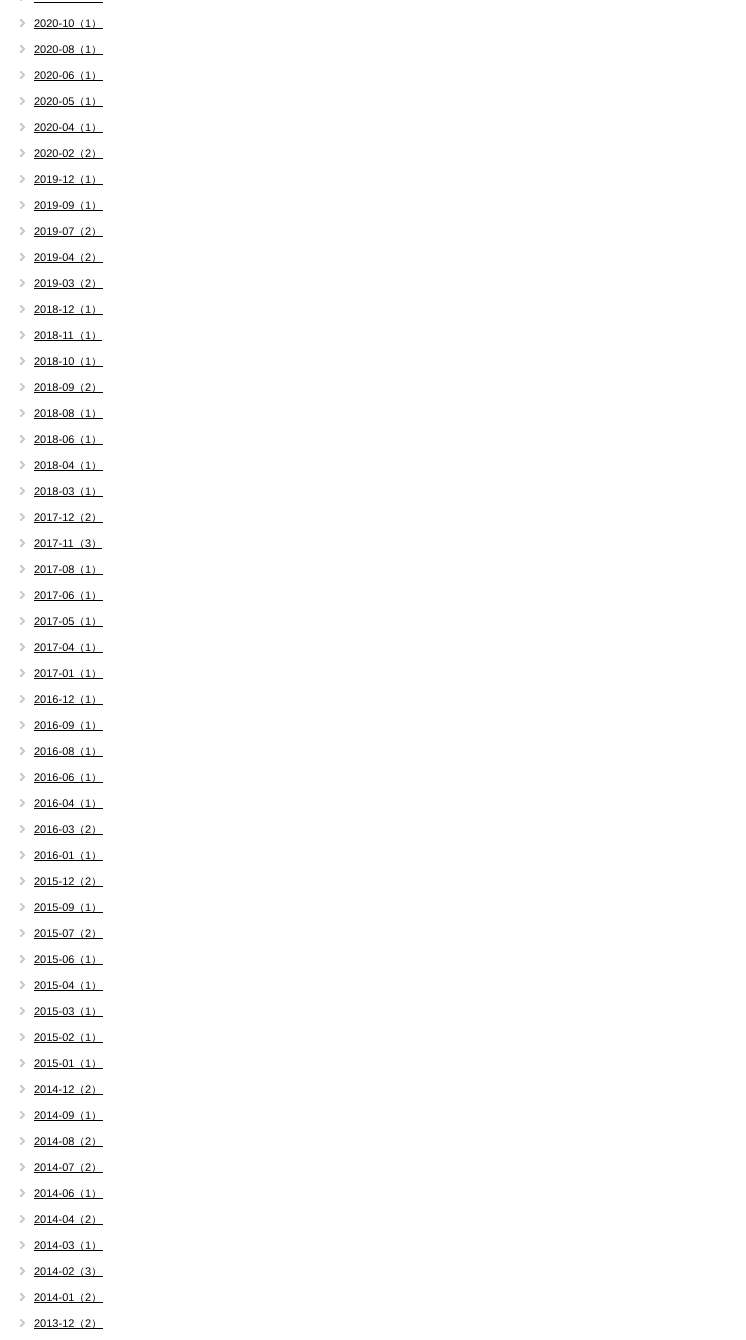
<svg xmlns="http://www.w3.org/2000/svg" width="746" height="1340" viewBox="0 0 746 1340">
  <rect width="100%" height="100%" fill="#fff"/>
  <path d="M20 0h2v1H20z" fill="#ccc"/>
  <path d="M34 2h69v1H34z" fill="#000"/>
  <image x="20" y="19" width="5" height="8" href="img/1.png"/>
  <path d="M34 28h69v1H34z" fill="#000"/>
  <image x="20" y="45" width="5" height="8" href="img/1.png"/>
  <path d="M34 54h69v1H34z" fill="#000"/>
  <image x="20" y="71" width="5" height="8" href="img/1.png"/>
  <path d="M34 80h69v1H34z" fill="#000"/>
  <image x="20" y="97" width="5" height="8" href="img/1.png"/>
  <path d="M34 106h69v1H34z" fill="#000"/>
  <image x="20" y="123" width="5" height="8" href="img/1.png"/>
  <path d="M34 132h69v1H34z" fill="#000"/>
  <image x="20" y="149" width="5" height="8" href="img/1.png"/>
  <path d="M34 158h69v1H34z" fill="#000"/>
  <image x="20" y="175" width="5" height="8" href="img/1.png"/>
  <path d="M34 184h69v1H34z" fill="#000"/>
  <image x="20" y="201" width="5" height="8" href="img/1.png"/>
  <path d="M34 210h69v1H34z" fill="#000"/>
  <image x="20" y="227" width="5" height="8" href="img/1.png"/>
  <path d="M34 236h69v1H34z" fill="#000"/>
  <image x="20" y="253" width="5" height="8" href="img/1.png"/>
  <path d="M34 262h69v1H34z" fill="#000"/>
  <image x="20" y="279" width="5" height="8" href="img/1.png"/>
  <path d="M34 288h69v1H34z" fill="#000"/>
  <image x="20" y="305" width="5" height="8" href="img/1.png"/>
  <path d="M34 314h69v1H34z" fill="#000"/>
  <image x="20" y="331" width="5" height="8" href="img/1.png"/>
  <path d="M34 340h68v1H34z" fill="#000"/>
  <image x="20" y="357" width="5" height="8" href="img/1.png"/>
  <path d="M34 366h69v1H34z" fill="#000"/>
  <image x="20" y="383" width="5" height="8" href="img/1.png"/>
  <path d="M34 392h69v1H34z" fill="#000"/>
  <image x="20" y="409" width="5" height="8" href="img/1.png"/>
  <path d="M34 418h69v1H34z" fill="#000"/>
  <image x="20" y="435" width="5" height="8" href="img/1.png"/>
  <path d="M34 444h69v1H34z" fill="#000"/>
  <image x="20" y="461" width="5" height="8" href="img/1.png"/>
  <path d="M34 470h69v1H34z" fill="#000"/>
  <image x="20" y="487" width="5" height="8" href="img/1.png"/>
  <path d="M34 496h69v1H34z" fill="#000"/>
  <image x="20" y="513" width="5" height="8" href="img/1.png"/>
  <path d="M34 522h69v1H34z" fill="#000"/>
  <image x="20" y="539" width="5" height="8" href="img/1.png"/>
  <path d="M34 548h68v1H34z" fill="#000"/>
  <image x="20" y="565" width="5" height="8" href="img/1.png"/>
  <path d="M34 574h69v1H34z" fill="#000"/>
  <image x="20" y="591" width="5" height="8" href="img/1.png"/>
  <path d="M34 600h69v1H34z" fill="#000"/>
  <image x="20" y="617" width="5" height="8" href="img/1.png"/>
  <path d="M34 626h69v1H34z" fill="#000"/>
  <image x="20" y="643" width="5" height="8" href="img/1.png"/>
  <path d="M34 652h69v1H34z" fill="#000"/>
  <image x="20" y="669" width="5" height="8" href="img/1.png"/>
  <path d="M34 678h69v1H34z" fill="#000"/>
  <image x="20" y="695" width="5" height="8" href="img/1.png"/>
  <path d="M34 704h69v1H34z" fill="#000"/>
  <image x="20" y="721" width="5" height="8" href="img/1.png"/>
  <path d="M34 730h69v1H34z" fill="#000"/>
  <image x="20" y="747" width="5" height="8" href="img/1.png"/>
  <path d="M34 756h69v1H34z" fill="#000"/>
  <image x="20" y="773" width="5" height="8" href="img/1.png"/>
  <path d="M34 782h69v1H34z" fill="#000"/>
  <image x="20" y="799" width="5" height="8" href="img/1.png"/>
  <path d="M34 808h69v1H34z" fill="#000"/>
  <image x="20" y="825" width="5" height="8" href="img/1.png"/>
  <path d="M34 834h69v1H34z" fill="#000"/>
  <image x="20" y="851" width="5" height="8" href="img/1.png"/>
  <path d="M34 860h69v1H34z" fill="#000"/>
  <image x="20" y="877" width="5" height="8" href="img/1.png"/>
  <path d="M34 886h69v1H34z" fill="#000"/>
  <image x="20" y="903" width="5" height="8" href="img/1.png"/>
  <path d="M34 912h69v1H34z" fill="#000"/>
  <image x="20" y="929" width="5" height="8" href="img/1.png"/>
  <path d="M34 938h69v1H34z" fill="#000"/>
  <image x="20" y="955" width="5" height="8" href="img/1.png"/>
  <path d="M34 964h69v1H34z" fill="#000"/>
  <image x="20" y="981" width="5" height="8" href="img/1.png"/>
  <path d="M34 990h69v1H34z" fill="#000"/>
  <image x="20" y="1007" width="5" height="8" href="img/1.png"/>
  <path d="M34 1016h69v1H34z" fill="#000"/>
  <image x="20" y="1033" width="5" height="8" href="img/1.png"/>
  <path d="M34 1042h69v1H34z" fill="#000"/>
  <image x="20" y="1059" width="5" height="8" href="img/1.png"/>
  <path d="M34 1068h69v1H34z" fill="#000"/>
  <image x="20" y="1085" width="5" height="8" href="img/1.png"/>
  <path d="M34 1094h69v1H34z" fill="#000"/>
  <image x="20" y="1111" width="5" height="8" href="img/1.png"/>
  <path d="M34 1120h69v1H34z" fill="#000"/>
  <image x="20" y="1137" width="5" height="8" href="img/1.png"/>
  <path d="M34 1146h69v1H34z" fill="#000"/>
  <image x="20" y="1163" width="5" height="8" href="img/1.png"/>
  <path d="M34 1172h69v1H34z" fill="#000"/>
  <image x="20" y="1189" width="5" height="8" href="img/1.png"/>
  <path d="M34 1198h69v1H34z" fill="#000"/>
  <image x="20" y="1215" width="5" height="8" href="img/1.png"/>
  <path d="M34 1224h69v1H34z" fill="#000"/>
  <image x="20" y="1241" width="5" height="8" href="img/1.png"/>
  <path d="M34 1250h69v1H34z" fill="#000"/>
  <image x="20" y="1267" width="5" height="8" href="img/1.png"/>
  <path d="M34 1276h69v1H34z" fill="#000"/>
  <image x="20" y="1293" width="5" height="8" href="img/1.png"/>
  <path d="M34 1302h69v1H34z" fill="#000"/>
  <image x="20" y="1319" width="5" height="8" href="img/1.png"/>
  <path d="M34 1328h69v1H34z" fill="#000"/>
  <text x="34" y="27" font-family="Liberation Sans" font-size="11" fill="#000">2020-10</text>
  <text x="74" y="27" font-family="WenQuanYi Zen Hei" font-size="11" font-weight="500" fill="#000">（</text>
  <text x="85" y="27" font-family="Liberation Sans" font-size="11" fill="#000">1</text>
  <text x="91" y="27" font-family="WenQuanYi Zen Hei" font-size="11" font-weight="500" fill="#000">）</text>
  <text x="34" y="53" font-family="Liberation Sans" font-size="11" fill="#000">2020-08</text>
  <text x="74" y="53" font-family="WenQuanYi Zen Hei" font-size="11" font-weight="500" fill="#000">（</text>
  <text x="85" y="53" font-family="Liberation Sans" font-size="11" fill="#000">1</text>
  <text x="91" y="53" font-family="WenQuanYi Zen Hei" font-size="11" font-weight="500" fill="#000">）</text>
  <text x="34" y="79" font-family="Liberation Sans" font-size="11" fill="#000">2020-06</text>
  <text x="74" y="79" font-family="WenQuanYi Zen Hei" font-size="11" font-weight="500" fill="#000">（</text>
  <text x="85" y="79" font-family="Liberation Sans" font-size="11" fill="#000">1</text>
  <text x="91" y="79" font-family="WenQuanYi Zen Hei" font-size="11" font-weight="500" fill="#000">）</text>
  <text x="34" y="105" font-family="Liberation Sans" font-size="11" fill="#000">2020-05</text>
  <text x="74" y="105" font-family="WenQuanYi Zen Hei" font-size="11" font-weight="500" fill="#000">（</text>
  <text x="85" y="105" font-family="Liberation Sans" font-size="11" fill="#000">1</text>
  <text x="91" y="105" font-family="WenQuanYi Zen Hei" font-size="11" font-weight="500" fill="#000">）</text>
  <text x="34" y="131" font-family="Liberation Sans" font-size="11" fill="#000">2020-04</text>
  <text x="74" y="131" font-family="WenQuanYi Zen Hei" font-size="11" font-weight="500" fill="#000">（</text>
  <text x="85" y="131" font-family="Liberation Sans" font-size="11" fill="#000">1</text>
  <text x="91" y="131" font-family="WenQuanYi Zen Hei" font-size="11" font-weight="500" fill="#000">）</text>
  <text x="34" y="157" font-family="Liberation Sans" font-size="11" fill="#000">2020-02</text>
  <text x="74" y="157" font-family="WenQuanYi Zen Hei" font-size="11" font-weight="500" fill="#000">（</text>
  <text x="85" y="157" font-family="Liberation Sans" font-size="11" fill="#000">2</text>
  <text x="91" y="157" font-family="WenQuanYi Zen Hei" font-size="11" font-weight="500" fill="#000">）</text>
  <text x="34" y="183" font-family="Liberation Sans" font-size="11" fill="#000">2019-12</text>
  <text x="74" y="183" font-family="WenQuanYi Zen Hei" font-size="11" font-weight="500" fill="#000">（</text>
  <text x="85" y="183" font-family="Liberation Sans" font-size="11" fill="#000">1</text>
  <text x="91" y="183" font-family="WenQuanYi Zen Hei" font-size="11" font-weight="500" fill="#000">）</text>
  <text x="34" y="209" font-family="Liberation Sans" font-size="11" fill="#000">2019-09</text>
  <text x="74" y="209" font-family="WenQuanYi Zen Hei" font-size="11" font-weight="500" fill="#000">（</text>
  <text x="85" y="209" font-family="Liberation Sans" font-size="11" fill="#000">1</text>
  <text x="91" y="209" font-family="WenQuanYi Zen Hei" font-size="11" font-weight="500" fill="#000">）</text>
  <text x="34" y="235" font-family="Liberation Sans" font-size="11" fill="#000">2019-07</text>
  <text x="74" y="235" font-family="WenQuanYi Zen Hei" font-size="11" font-weight="500" fill="#000">（</text>
  <text x="85" y="235" font-family="Liberation Sans" font-size="11" fill="#000">2</text>
  <text x="91" y="235" font-family="WenQuanYi Zen Hei" font-size="11" font-weight="500" fill="#000">）</text>
  <text x="34" y="261" font-family="Liberation Sans" font-size="11" fill="#000">2019-04</text>
  <text x="74" y="261" font-family="WenQuanYi Zen Hei" font-size="11" font-weight="500" fill="#000">（</text>
  <text x="85" y="261" font-family="Liberation Sans" font-size="11" fill="#000">2</text>
  <text x="91" y="261" font-family="WenQuanYi Zen Hei" font-size="11" font-weight="500" fill="#000">）</text>
  <text x="34" y="287" font-family="Liberation Sans" font-size="11" fill="#000">2019-03</text>
  <text x="74" y="287" font-family="WenQuanYi Zen Hei" font-size="11" font-weight="500" fill="#000">（</text>
  <text x="85" y="287" font-family="Liberation Sans" font-size="11" fill="#000">2</text>
  <text x="91" y="287" font-family="WenQuanYi Zen Hei" font-size="11" font-weight="500" fill="#000">）</text>
  <text x="34" y="313" font-family="Liberation Sans" font-size="11" fill="#000">2018-12</text>
  <text x="74" y="313" font-family="WenQuanYi Zen Hei" font-size="11" font-weight="500" fill="#000">（</text>
  <text x="85" y="313" font-family="Liberation Sans" font-size="11" fill="#000">1</text>
  <text x="91" y="313" font-family="WenQuanYi Zen Hei" font-size="11" font-weight="500" fill="#000">）</text>
  <text x="34" y="339" font-family="Liberation Sans" font-size="11" fill="#000">2018-11</text>
  <text x="74" y="339" font-family="WenQuanYi Zen Hei" font-size="11" font-weight="500" fill="#000">（</text>
  <text x="85" y="339" font-family="Liberation Sans" font-size="11" fill="#000">1</text>
  <text x="91" y="339" font-family="WenQuanYi Zen Hei" font-size="11" font-weight="500" fill="#000">）</text>
  <text x="34" y="365" font-family="Liberation Sans" font-size="11" fill="#000">2018-10</text>
  <text x="74" y="365" font-family="WenQuanYi Zen Hei" font-size="11" font-weight="500" fill="#000">（</text>
  <text x="85" y="365" font-family="Liberation Sans" font-size="11" fill="#000">1</text>
  <text x="91" y="365" font-family="WenQuanYi Zen Hei" font-size="11" font-weight="500" fill="#000">）</text>
  <text x="34" y="391" font-family="Liberation Sans" font-size="11" fill="#000">2018-09</text>
  <text x="74" y="391" font-family="WenQuanYi Zen Hei" font-size="11" font-weight="500" fill="#000">（</text>
  <text x="85" y="391" font-family="Liberation Sans" font-size="11" fill="#000">2</text>
  <text x="91" y="391" font-family="WenQuanYi Zen Hei" font-size="11" font-weight="500" fill="#000">）</text>
  <text x="34" y="417" font-family="Liberation Sans" font-size="11" fill="#000">2018-08</text>
  <text x="74" y="417" font-family="WenQuanYi Zen Hei" font-size="11" font-weight="500" fill="#000">（</text>
  <text x="85" y="417" font-family="Liberation Sans" font-size="11" fill="#000">1</text>
  <text x="91" y="417" font-family="WenQuanYi Zen Hei" font-size="11" font-weight="500" fill="#000">）</text>
  <text x="34" y="443" font-family="Liberation Sans" font-size="11" fill="#000">2018-06</text>
  <text x="74" y="443" font-family="WenQuanYi Zen Hei" font-size="11" font-weight="500" fill="#000">（</text>
  <text x="85" y="443" font-family="Liberation Sans" font-size="11" fill="#000">1</text>
  <text x="91" y="443" font-family="WenQuanYi Zen Hei" font-size="11" font-weight="500" fill="#000">）</text>
  <text x="34" y="469" font-family="Liberation Sans" font-size="11" fill="#000">2018-04</text>
  <text x="74" y="469" font-family="WenQuanYi Zen Hei" font-size="11" font-weight="500" fill="#000">（</text>
  <text x="85" y="469" font-family="Liberation Sans" font-size="11" fill="#000">1</text>
  <text x="91" y="469" font-family="WenQuanYi Zen Hei" font-size="11" font-weight="500" fill="#000">）</text>
  <text x="34" y="495" font-family="Liberation Sans" font-size="11" fill="#000">2018-03</text>
  <text x="74" y="495" font-family="WenQuanYi Zen Hei" font-size="11" font-weight="500" fill="#000">（</text>
  <text x="85" y="495" font-family="Liberation Sans" font-size="11" fill="#000">1</text>
  <text x="91" y="495" font-family="WenQuanYi Zen Hei" font-size="11" font-weight="500" fill="#000">）</text>
  <text x="34" y="521" font-family="Liberation Sans" font-size="11" fill="#000">2017-12</text>
  <text x="74" y="521" font-family="WenQuanYi Zen Hei" font-size="11" font-weight="500" fill="#000">（</text>
  <text x="85" y="521" font-family="Liberation Sans" font-size="11" fill="#000">2</text>
  <text x="91" y="521" font-family="WenQuanYi Zen Hei" font-size="11" font-weight="500" fill="#000">）</text>
  <text x="34" y="547" font-family="Liberation Sans" font-size="11" fill="#000">2017-11</text>
  <text x="74" y="547" font-family="WenQuanYi Zen Hei" font-size="11" font-weight="500" fill="#000">（</text>
  <text x="85" y="547" font-family="Liberation Sans" font-size="11" fill="#000">3</text>
  <text x="91" y="547" font-family="WenQuanYi Zen Hei" font-size="11" font-weight="500" fill="#000">）</text>
  <text x="34" y="573" font-family="Liberation Sans" font-size="11" fill="#000">2017-08</text>
  <text x="74" y="573" font-family="WenQuanYi Zen Hei" font-size="11" font-weight="500" fill="#000">（</text>
  <text x="85" y="573" font-family="Liberation Sans" font-size="11" fill="#000">1</text>
  <text x="91" y="573" font-family="WenQuanYi Zen Hei" font-size="11" font-weight="500" fill="#000">）</text>
  <text x="34" y="599" font-family="Liberation Sans" font-size="11" fill="#000">2017-06</text>
  <text x="74" y="599" font-family="WenQuanYi Zen Hei" font-size="11" font-weight="500" fill="#000">（</text>
  <text x="85" y="599" font-family="Liberation Sans" font-size="11" fill="#000">1</text>
  <text x="91" y="599" font-family="WenQuanYi Zen Hei" font-size="11" font-weight="500" fill="#000">）</text>
  <text x="34" y="625" font-family="Liberation Sans" font-size="11" fill="#000">2017-05</text>
  <text x="74" y="625" font-family="WenQuanYi Zen Hei" font-size="11" font-weight="500" fill="#000">（</text>
  <text x="85" y="625" font-family="Liberation Sans" font-size="11" fill="#000">1</text>
  <text x="91" y="625" font-family="WenQuanYi Zen Hei" font-size="11" font-weight="500" fill="#000">）</text>
  <text x="34" y="651" font-family="Liberation Sans" font-size="11" fill="#000">2017-04</text>
  <text x="74" y="651" font-family="WenQuanYi Zen Hei" font-size="11" font-weight="500" fill="#000">（</text>
  <text x="85" y="651" font-family="Liberation Sans" font-size="11" fill="#000">1</text>
  <text x="91" y="651" font-family="WenQuanYi Zen Hei" font-size="11" font-weight="500" fill="#000">）</text>
  <text x="34" y="677" font-family="Liberation Sans" font-size="11" fill="#000">2017-01</text>
  <text x="74" y="677" font-family="WenQuanYi Zen Hei" font-size="11" font-weight="500" fill="#000">（</text>
  <text x="85" y="677" font-family="Liberation Sans" font-size="11" fill="#000">1</text>
  <text x="91" y="677" font-family="WenQuanYi Zen Hei" font-size="11" font-weight="500" fill="#000">）</text>
  <text x="34" y="703" font-family="Liberation Sans" font-size="11" fill="#000">2016-12</text>
  <text x="74" y="703" font-family="WenQuanYi Zen Hei" font-size="11" font-weight="500" fill="#000">（</text>
  <text x="85" y="703" font-family="Liberation Sans" font-size="11" fill="#000">1</text>
  <text x="91" y="703" font-family="WenQuanYi Zen Hei" font-size="11" font-weight="500" fill="#000">）</text>
  <text x="34" y="729" font-family="Liberation Sans" font-size="11" fill="#000">2016-09</text>
  <text x="74" y="729" font-family="WenQuanYi Zen Hei" font-size="11" font-weight="500" fill="#000">（</text>
  <text x="85" y="729" font-family="Liberation Sans" font-size="11" fill="#000">1</text>
  <text x="91" y="729" font-family="WenQuanYi Zen Hei" font-size="11" font-weight="500" fill="#000">）</text>
  <text x="34" y="755" font-family="Liberation Sans" font-size="11" fill="#000">2016-08</text>
  <text x="74" y="755" font-family="WenQuanYi Zen Hei" font-size="11" font-weight="500" fill="#000">（</text>
  <text x="85" y="755" font-family="Liberation Sans" font-size="11" fill="#000">1</text>
  <text x="91" y="755" font-family="WenQuanYi Zen Hei" font-size="11" font-weight="500" fill="#000">）</text>
  <text x="34" y="781" font-family="Liberation Sans" font-size="11" fill="#000">2016-06</text>
  <text x="74" y="781" font-family="WenQuanYi Zen Hei" font-size="11" font-weight="500" fill="#000">（</text>
  <text x="85" y="781" font-family="Liberation Sans" font-size="11" fill="#000">1</text>
  <text x="91" y="781" font-family="WenQuanYi Zen Hei" font-size="11" font-weight="500" fill="#000">）</text>
  <text x="34" y="807" font-family="Liberation Sans" font-size="11" fill="#000">2016-04</text>
  <text x="74" y="807" font-family="WenQuanYi Zen Hei" font-size="11" font-weight="500" fill="#000">（</text>
  <text x="85" y="807" font-family="Liberation Sans" font-size="11" fill="#000">1</text>
  <text x="91" y="807" font-family="WenQuanYi Zen Hei" font-size="11" font-weight="500" fill="#000">）</text>
  <text x="34" y="833" font-family="Liberation Sans" font-size="11" fill="#000">2016-03</text>
  <text x="74" y="833" font-family="WenQuanYi Zen Hei" font-size="11" font-weight="500" fill="#000">（</text>
  <text x="85" y="833" font-family="Liberation Sans" font-size="11" fill="#000">2</text>
  <text x="91" y="833" font-family="WenQuanYi Zen Hei" font-size="11" font-weight="500" fill="#000">）</text>
  <text x="34" y="859" font-family="Liberation Sans" font-size="11" fill="#000">2016-01</text>
  <text x="74" y="859" font-family="WenQuanYi Zen Hei" font-size="11" font-weight="500" fill="#000">（</text>
  <text x="85" y="859" font-family="Liberation Sans" font-size="11" fill="#000">1</text>
  <text x="91" y="859" font-family="WenQuanYi Zen Hei" font-size="11" font-weight="500" fill="#000">）</text>
  <text x="34" y="885" font-family="Liberation Sans" font-size="11" fill="#000">2015-12</text>
  <text x="74" y="885" font-family="WenQuanYi Zen Hei" font-size="11" font-weight="500" fill="#000">（</text>
  <text x="85" y="885" font-family="Liberation Sans" font-size="11" fill="#000">2</text>
  <text x="91" y="885" font-family="WenQuanYi Zen Hei" font-size="11" font-weight="500" fill="#000">）</text>
  <text x="34" y="911" font-family="Liberation Sans" font-size="11" fill="#000">2015-09</text>
  <text x="74" y="911" font-family="WenQuanYi Zen Hei" font-size="11" font-weight="500" fill="#000">（</text>
  <text x="85" y="911" font-family="Liberation Sans" font-size="11" fill="#000">1</text>
  <text x="91" y="911" font-family="WenQuanYi Zen Hei" font-size="11" font-weight="500" fill="#000">）</text>
  <text x="34" y="937" font-family="Liberation Sans" font-size="11" fill="#000">2015-07</text>
  <text x="74" y="937" font-family="WenQuanYi Zen Hei" font-size="11" font-weight="500" fill="#000">（</text>
  <text x="85" y="937" font-family="Liberation Sans" font-size="11" fill="#000">2</text>
  <text x="91" y="937" font-family="WenQuanYi Zen Hei" font-size="11" font-weight="500" fill="#000">）</text>
  <text x="34" y="963" font-family="Liberation Sans" font-size="11" fill="#000">2015-06</text>
  <text x="74" y="963" font-family="WenQuanYi Zen Hei" font-size="11" font-weight="500" fill="#000">（</text>
  <text x="85" y="963" font-family="Liberation Sans" font-size="11" fill="#000">1</text>
  <text x="91" y="963" font-family="WenQuanYi Zen Hei" font-size="11" font-weight="500" fill="#000">）</text>
  <text x="34" y="989" font-family="Liberation Sans" font-size="11" fill="#000">2015-04</text>
  <text x="74" y="989" font-family="WenQuanYi Zen Hei" font-size="11" font-weight="500" fill="#000">（</text>
  <text x="85" y="989" font-family="Liberation Sans" font-size="11" fill="#000">1</text>
  <text x="91" y="989" font-family="WenQuanYi Zen Hei" font-size="11" font-weight="500" fill="#000">）</text>
  <text x="34" y="1015" font-family="Liberation Sans" font-size="11" fill="#000">2015-03</text>
  <text x="74" y="1015" font-family="WenQuanYi Zen Hei" font-size="11" font-weight="500" fill="#000">（</text>
  <text x="85" y="1015" font-family="Liberation Sans" font-size="11" fill="#000">1</text>
  <text x="91" y="1015" font-family="WenQuanYi Zen Hei" font-size="11" font-weight="500" fill="#000">）</text>
  <text x="34" y="1041" font-family="Liberation Sans" font-size="11" fill="#000">2015-02</text>
  <text x="74" y="1041" font-family="WenQuanYi Zen Hei" font-size="11" font-weight="500" fill="#000">（</text>
  <text x="85" y="1041" font-family="Liberation Sans" font-size="11" fill="#000">1</text>
  <text x="91" y="1041" font-family="WenQuanYi Zen Hei" font-size="11" font-weight="500" fill="#000">）</text>
  <text x="34" y="1067" font-family="Liberation Sans" font-size="11" fill="#000">2015-01</text>
  <text x="74" y="1067" font-family="WenQuanYi Zen Hei" font-size="11" font-weight="500" fill="#000">（</text>
  <text x="85" y="1067" font-family="Liberation Sans" font-size="11" fill="#000">1</text>
  <text x="91" y="1067" font-family="WenQuanYi Zen Hei" font-size="11" font-weight="500" fill="#000">）</text>
  <text x="34" y="1093" font-family="Liberation Sans" font-size="11" fill="#000">2014-12</text>
  <text x="74" y="1093" font-family="WenQuanYi Zen Hei" font-size="11" font-weight="500" fill="#000">（</text>
  <text x="85" y="1093" font-family="Liberation Sans" font-size="11" fill="#000">2</text>
  <text x="91" y="1093" font-family="WenQuanYi Zen Hei" font-size="11" font-weight="500" fill="#000">）</text>
  <text x="34" y="1119" font-family="Liberation Sans" font-size="11" fill="#000">2014-09</text>
  <text x="74" y="1119" font-family="WenQuanYi Zen Hei" font-size="11" font-weight="500" fill="#000">（</text>
  <text x="85" y="1119" font-family="Liberation Sans" font-size="11" fill="#000">1</text>
  <text x="91" y="1119" font-family="WenQuanYi Zen Hei" font-size="11" font-weight="500" fill="#000">）</text>
  <text x="34" y="1145" font-family="Liberation Sans" font-size="11" fill="#000">2014-08</text>
  <text x="74" y="1145" font-family="WenQuanYi Zen Hei" font-size="11" font-weight="500" fill="#000">（</text>
  <text x="85" y="1145" font-family="Liberation Sans" font-size="11" fill="#000">2</text>
  <text x="91" y="1145" font-family="WenQuanYi Zen Hei" font-size="11" font-weight="500" fill="#000">）</text>
  <text x="34" y="1171" font-family="Liberation Sans" font-size="11" fill="#000">2014-07</text>
  <text x="74" y="1171" font-family="WenQuanYi Zen Hei" font-size="11" font-weight="500" fill="#000">（</text>
  <text x="85" y="1171" font-family="Liberation Sans" font-size="11" fill="#000">2</text>
  <text x="91" y="1171" font-family="WenQuanYi Zen Hei" font-size="11" font-weight="500" fill="#000">）</text>
  <text x="34" y="1197" font-family="Liberation Sans" font-size="11" fill="#000">2014-06</text>
  <text x="74" y="1197" font-family="WenQuanYi Zen Hei" font-size="11" font-weight="500" fill="#000">（</text>
  <text x="85" y="1197" font-family="Liberation Sans" font-size="11" fill="#000">1</text>
  <text x="91" y="1197" font-family="WenQuanYi Zen Hei" font-size="11" font-weight="500" fill="#000">）</text>
  <text x="34" y="1223" font-family="Liberation Sans" font-size="11" fill="#000">2014-04</text>
  <text x="74" y="1223" font-family="WenQuanYi Zen Hei" font-size="11" font-weight="500" fill="#000">（</text>
  <text x="85" y="1223" font-family="Liberation Sans" font-size="11" fill="#000">2</text>
  <text x="91" y="1223" font-family="WenQuanYi Zen Hei" font-size="11" font-weight="500" fill="#000">）</text>
  <text x="34" y="1249" font-family="Liberation Sans" font-size="11" fill="#000">2014-03</text>
  <text x="74" y="1249" font-family="WenQuanYi Zen Hei" font-size="11" font-weight="500" fill="#000">（</text>
  <text x="85" y="1249" font-family="Liberation Sans" font-size="11" fill="#000">1</text>
  <text x="91" y="1249" font-family="WenQuanYi Zen Hei" font-size="11" font-weight="500" fill="#000">）</text>
  <text x="34" y="1275" font-family="Liberation Sans" font-size="11" fill="#000">2014-02</text>
  <text x="74" y="1275" font-family="WenQuanYi Zen Hei" font-size="11" font-weight="500" fill="#000">（</text>
  <text x="85" y="1275" font-family="Liberation Sans" font-size="11" fill="#000">3</text>
  <text x="91" y="1275" font-family="WenQuanYi Zen Hei" font-size="11" font-weight="500" fill="#000">）</text>
  <text x="34" y="1301" font-family="Liberation Sans" font-size="11" fill="#000">2014-01</text>
  <text x="74" y="1301" font-family="WenQuanYi Zen Hei" font-size="11" font-weight="500" fill="#000">（</text>
  <text x="85" y="1301" font-family="Liberation Sans" font-size="11" fill="#000">2</text>
  <text x="91" y="1301" font-family="WenQuanYi Zen Hei" font-size="11" font-weight="500" fill="#000">）</text>
  <text x="34" y="1327" font-family="Liberation Sans" font-size="11" fill="#000">2013-12</text>
  <text x="74" y="1327" font-family="WenQuanYi Zen Hei" font-size="11" font-weight="500" fill="#000">（</text>
  <text x="85" y="1327" font-family="Liberation Sans" font-size="11" fill="#000">2</text>
  <text x="91" y="1327" font-family="WenQuanYi Zen Hei" font-size="11" font-weight="500" fill="#000">）</text>
</svg>
